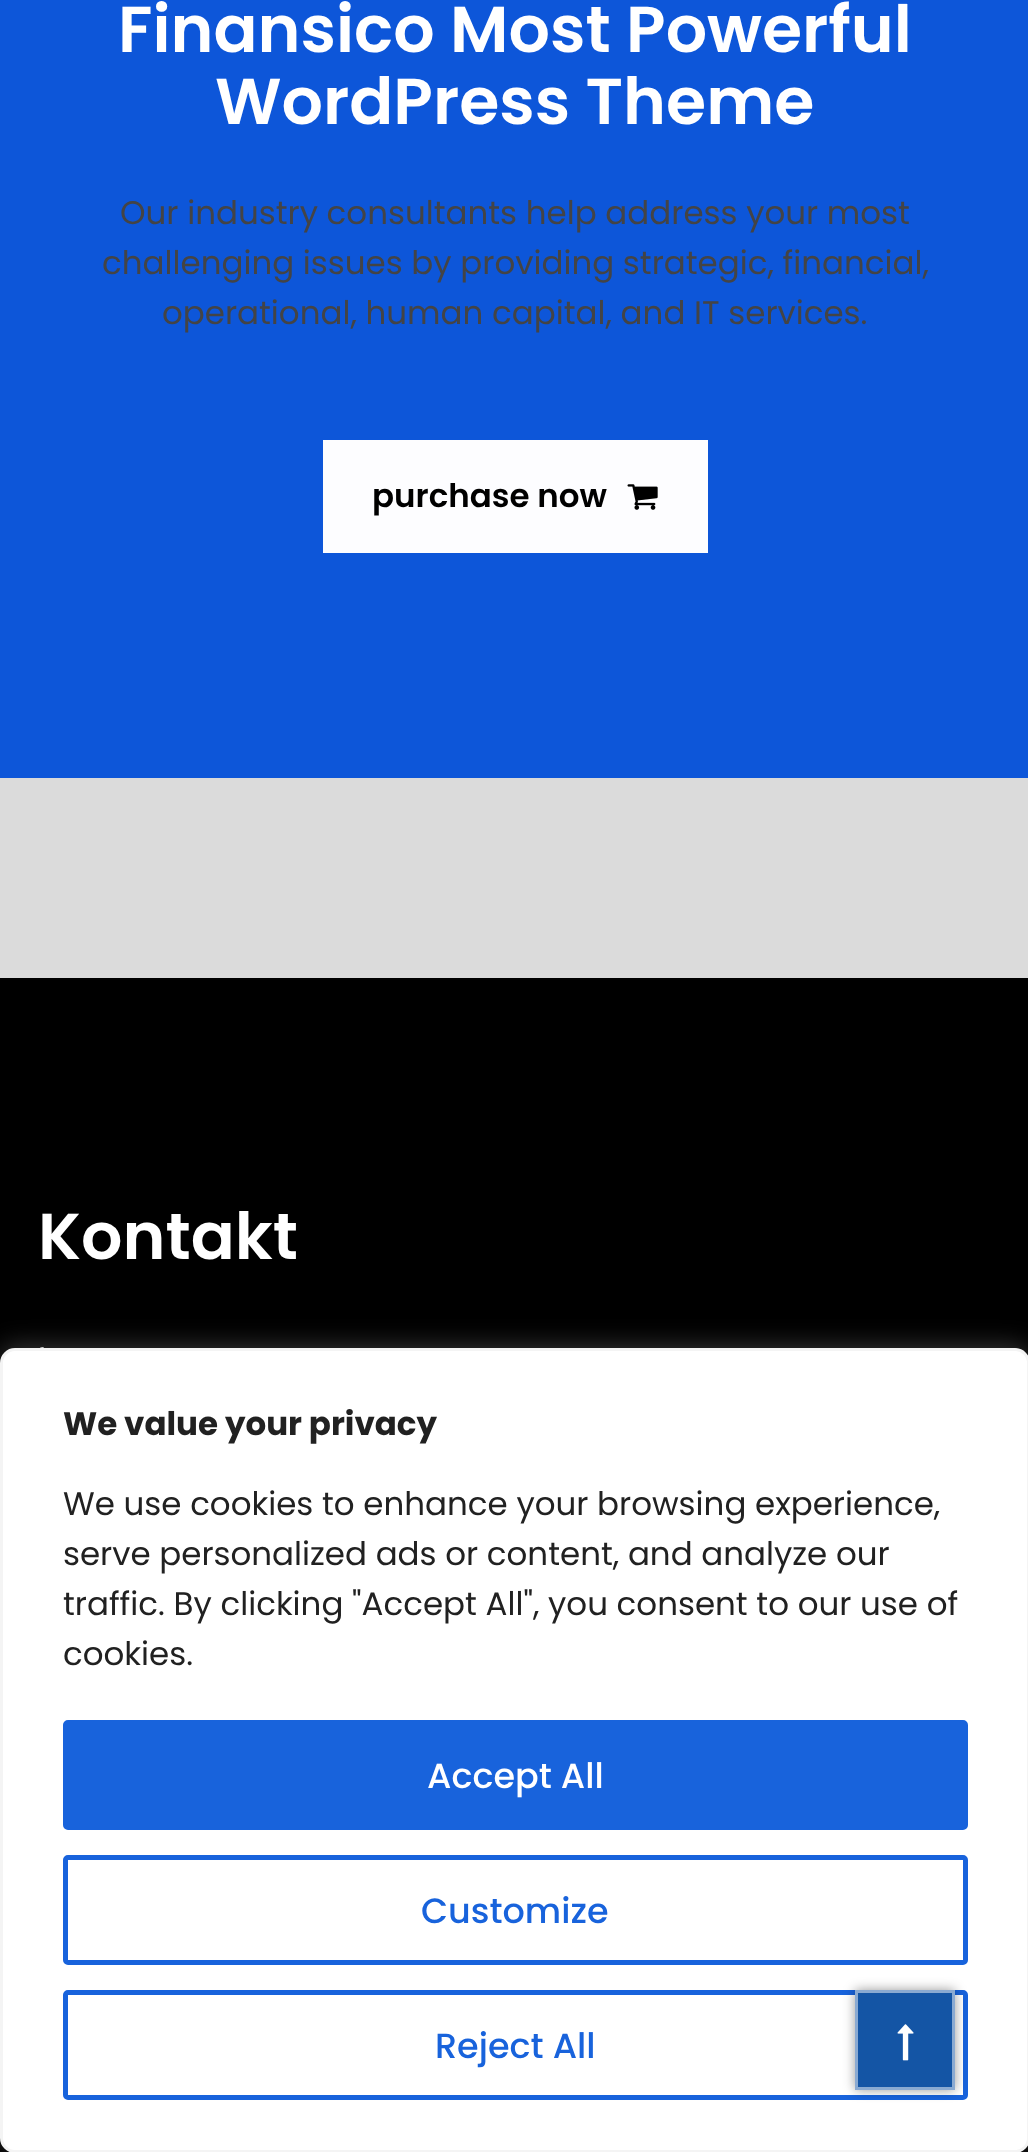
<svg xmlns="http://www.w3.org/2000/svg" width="1028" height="2152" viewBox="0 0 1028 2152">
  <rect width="100%" height="100%" fill="#dbdbdb"/>
  <path d="M0 0h1028v778H0z" fill="#0d56d9"/>
  <path d="M323 440h385v113H323z" fill="#fdfdff"/>
  <image x="627" y="484" width="31" height="26" href="img/1.png"/>
  <path d="M0 978h1028v1174H0z" fill="#000"/>
  <image x="40" y="1347" width="4" height="1" href="img/2.png"/>
  <rect y="1345" width="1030" height="805" rx="15" fill="#acabab4d" filter="blur(12.5px)"/>
  <rect x="1.5" y="1349.5" width="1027" height="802" rx="13.5" fill="#fff" stroke="#f4f4f4" stroke-width="3"/>
  <rect x="65.5" y="1992.5" width="900" height="105" rx="2.5" fill="none" stroke="#1863dc" stroke-width="5"/>
  <path d="M855 1990h100v100H855z" fill="#00000066" filter="blur(6px)"/>
  <path d="M856.5 1991.5h97v97H856.5z" fill="#1455a5" stroke="#8aaad2" stroke-width="3"/>
  <image x="897" y="2024" width="17" height="37" href="img/3.png"/>
  <rect x="65.5" y="1722.5" width="900" height="105" rx="2.5" fill="#1863dc" stroke="#1863dc" stroke-width="5"/>
  <rect x="65.5" y="1857.5" width="900" height="105" rx="2.5" fill="none" stroke="#1863dc" stroke-width="5"/>
  <g font-family="Poppins" font-size="65" font-weight="600" fill="#fff">
    <text x="118" y="52">Finansico Most Powerful</text>
    <text x="215" y="124">WordPress Theme</text>
  </g>
  <g font-family="Poppins" font-size="32.5" fill="#444445">
    <text x="120" y="224">Our industry consultants help address your most</text>
    <text x="102" y="274">challenging issues by providing strategic, financial,</text>
    <text x="162" y="324">operational, human capital, and IT services.</text>
  </g>
  <text x="372" y="507" font-family="Poppins" font-size="32.5" font-weight="600" fill="#000">purchase now</text>
  <text x="38" y="1259" font-family="Poppins" font-size="65" font-weight="600" fill="#fff">Kontakt</text>
  <text x="63" y="1435" font-family="Poppins" font-size="32.5" font-weight="bold" fill="#212121">We value your privacy</text>
  <g font-family="Poppins" font-size="32.5" fill="#212121">
    <text x="63" y="1515">We use cookies to enhance your browsing experience,</text>
    <text x="63" y="1565">serve personalized ads or content, and analyze our</text>
    <text x="63" y="1615">traffic. By clicking "Accept All", you consent to our use of</text>
    <text x="63" y="1665">cookies.</text>
  </g>
  <text x="427" y="1788" font-family="Poppins" font-size="35" font-weight="500" fill="#fff">Accept All</text>
  <g font-family="Poppins" font-size="35" font-weight="500" fill="#1863dc">
    <text x="421" y="1923">Customize</text>
    <text x="435" y="2058">Reject All</text>
  </g>
</svg>
